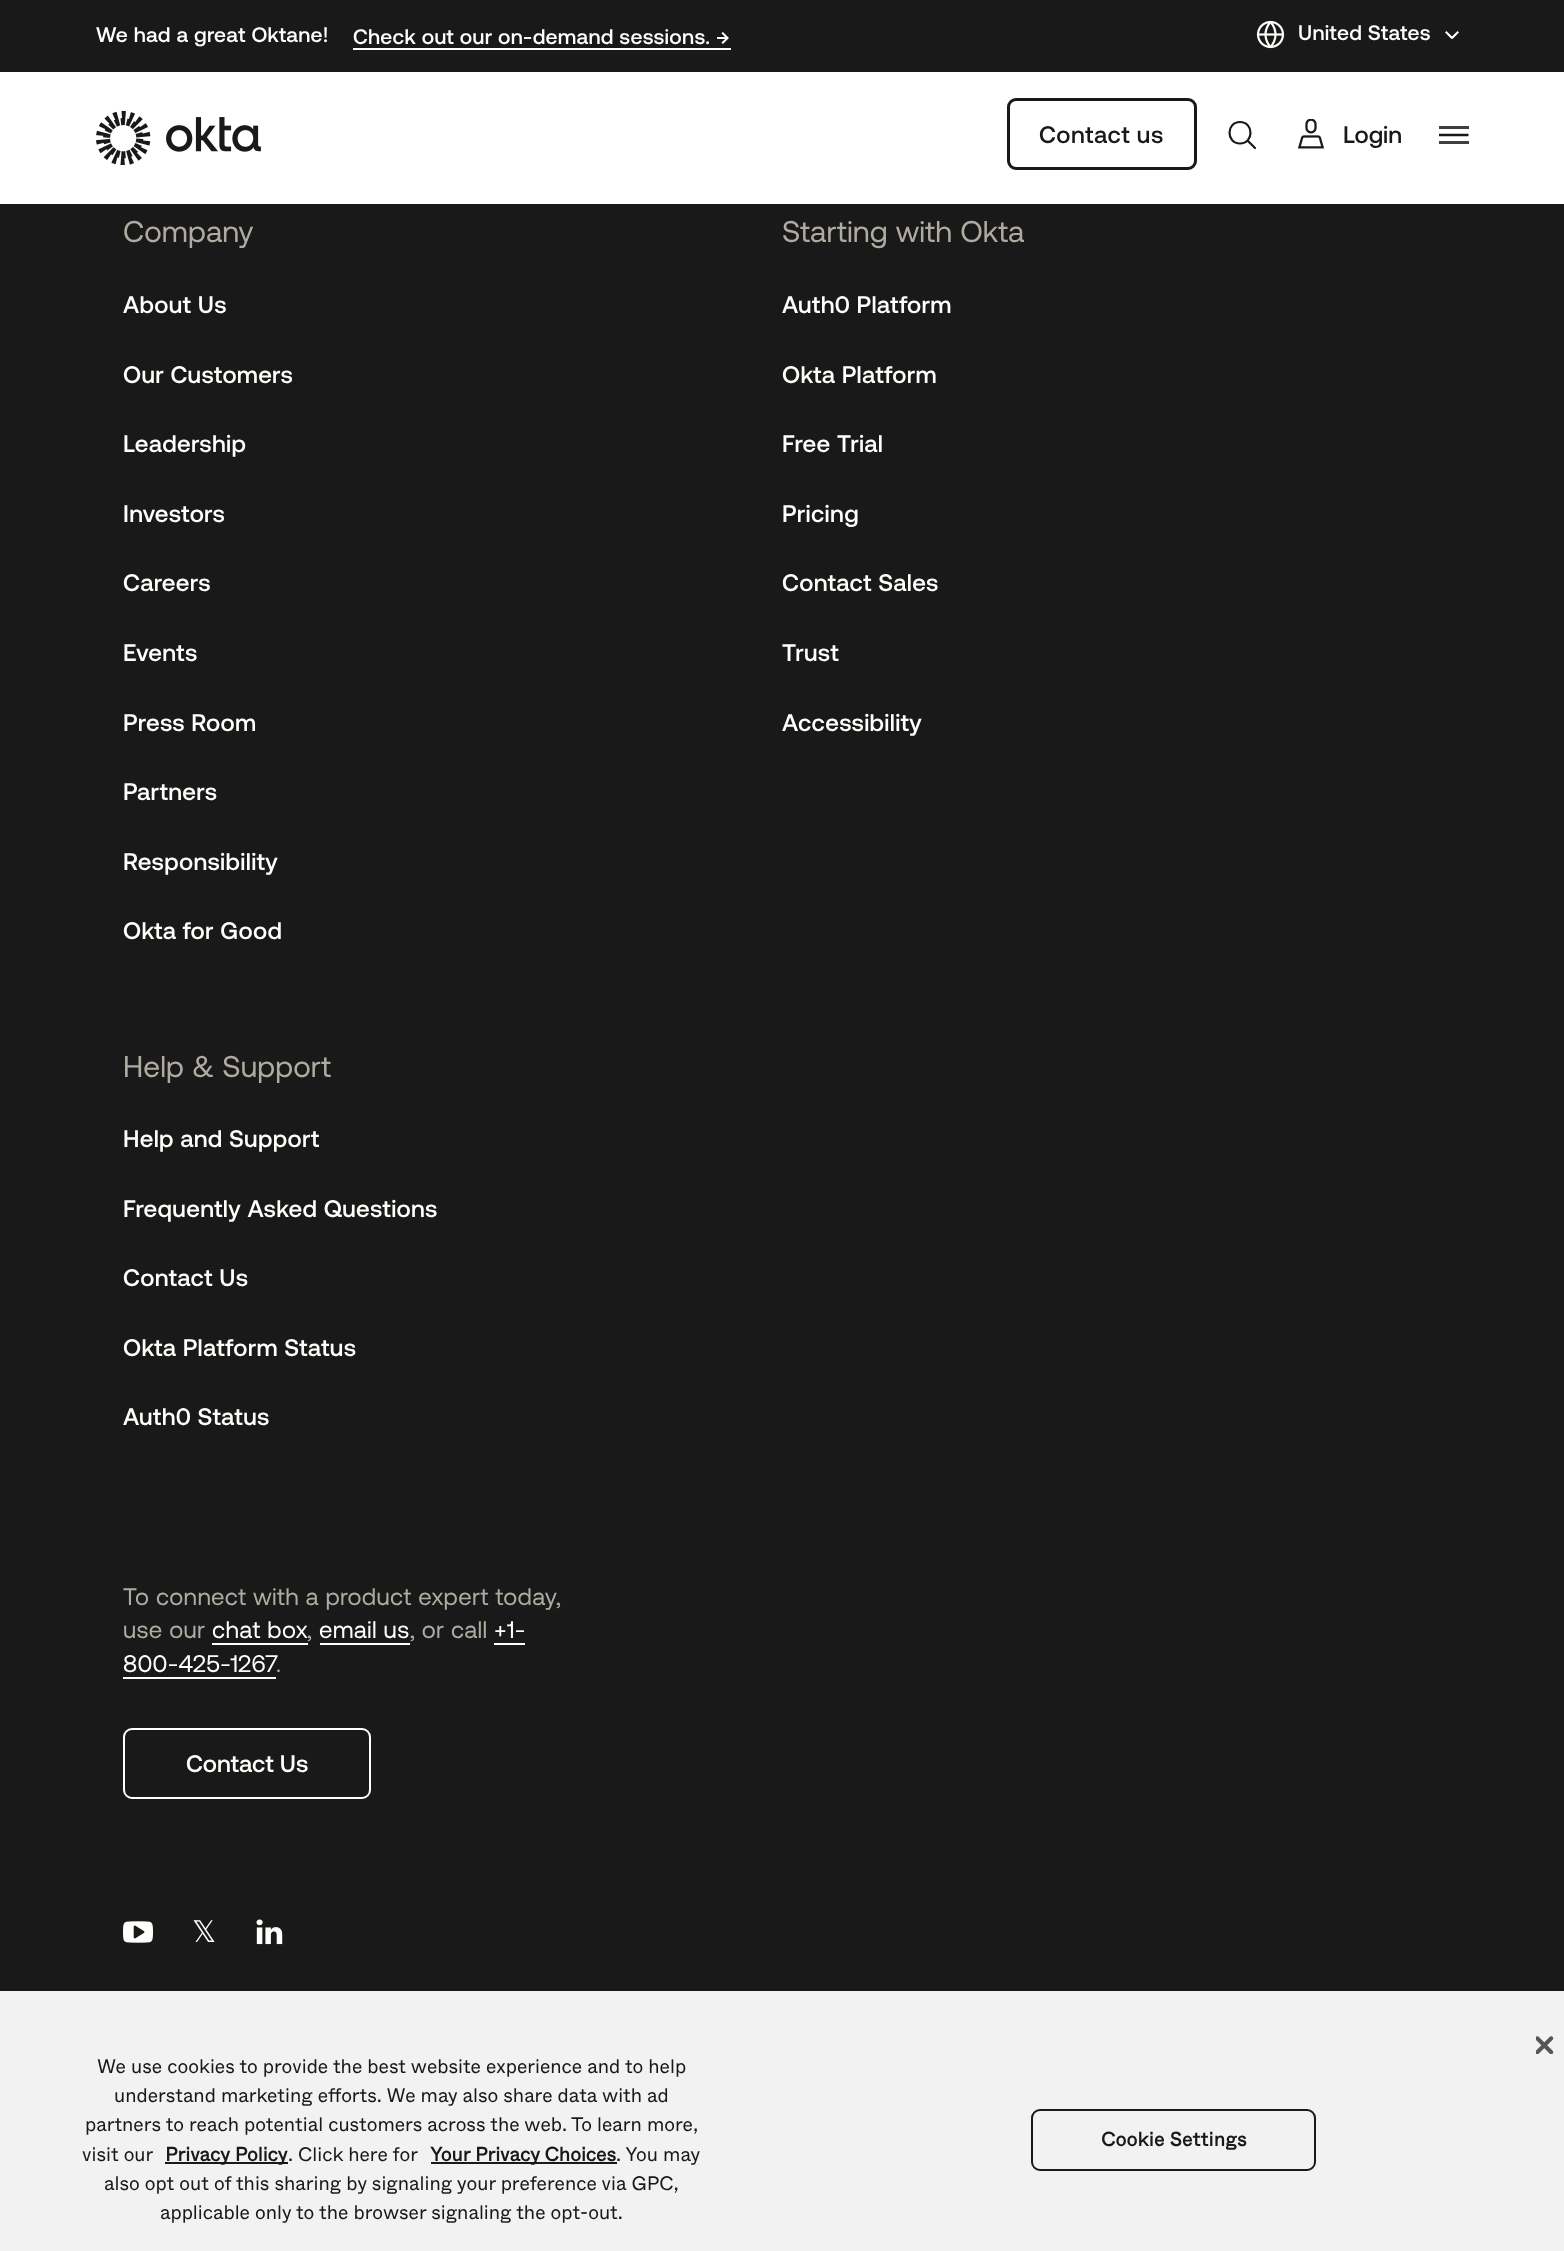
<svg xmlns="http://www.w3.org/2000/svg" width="1564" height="2251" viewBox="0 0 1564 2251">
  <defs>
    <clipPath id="clip1"><path d="M1439 120h30v30H1439z"/></clipPath>
  </defs>
  <rect width="100%" height="100%" fill="#191919"/>
  <path d="M0 72h1564v132H0z" fill="#fff"/>
  <path d="M353 48h378v2H353z" fill="#fffefa"/>
  <image x="1256" y="20" width="29" height="29" href="img/1.png"/>
  <path d="M1446.5 31L1453 37.5L1451.5 39L1445 32.5Z" fill="#fffefa"/>
  <path d="M1451 37.5L1457.5 31L1459 32.5L1452.5 39Z" fill="#fffefa"/>
  <path d="M1240 143.5C1254 143.5 1254 122 1240 122C1226 122 1226 143.5 1240 143.5ZM1255 148L1247.5 140.5" fill="none" stroke="#191919" stroke-width="2.2" stroke-linecap="round" stroke-linejoin="round"/>
  <image x="96" y="111" width="165" height="54" href="img/2.png"/>
  <rect x="1008.5" y="99.5" width="187" height="69" rx="7.5" fill="none" stroke="#191919" stroke-width="3"/>
  <image x="1297" y="119" width="28" height="30" href="img/3.png"/>
  <path d="M1439 141h30v3H1439z" fill="#3f3f3f"/>
  <path d="M1439 126h30v3H1439z" fill="#3f3f3f"/>
  <g clip-path="url(#clip1)">
    <path d="M1438.5 135H1468.5M1438.5 135H1468.5" fill="none" stroke="#191919" stroke-width="2.5"/>
  </g>
  <path d="M212 1643h96v2H212z" fill="#fffefa"/>
  <path d="M320 1643h90v2H320z" fill="#fffefa"/>
  <path d="M494 1643h31v2H494z" fill="#fffefa"/>
  <path d="M123 1677h153v2H123z" fill="#fffefa"/>
  <rect x="124" y="1729" width="246" height="69" rx="8" fill="none" stroke="#fff" stroke-width="2"/>
  <image x="123" y="1921" width="30" height="22" href="img/4.png"/>
  <image x="256" y="1919" width="27" height="26" href="img/5.png"/>
  <path d="M0 1991h1564v260H0z" fill="#f2f2f2"/>
  <image x="1536" y="2036" width="18" height="18" href="img/6.png"/>
  <path d="M165 2162h123v2H165z" fill="#191919"/>
  <path d="M431 2162h186v2H431z" fill="#191919"/>
  <rect x="1032" y="2110" width="283" height="60" rx="8" fill="none" stroke="#191919" stroke-width="2"/>
  <g font-family="'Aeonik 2'" font-size="21" font-weight="500" letter-spacing="0.3" fill="#fffefa">
    <text x="96" y="42">We had a great Oktane!</text>
    <text x="353" y="44">Check out our on-demand sessions. →</text>
  </g>
  <text x="1298" y="40" font-family="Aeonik" font-size="21" font-weight="500" letter-spacing="0.3" fill="#fffefa">United States</text>
  <text x="1039" y="143" font-family="Aeonik" font-size="24" font-weight="500" letter-spacing="0.5" fill="#191919">Contact us</text>
  <text x="1343" y="143" font-family="Aeonik" font-size="24" font-weight="500" fill="#191919">Login</text>
  <text x="123" y="242" font-family="Aeonik" font-size="30" letter-spacing="0.1" fill="#afaba1">Company</text>
  <g font-family="Aeonik" font-size="24" font-weight="500" letter-spacing="0.3" fill="#fffefa">
    <text x="123" y="313">About Us</text>
    <text x="123" y="383">Our Customers</text>
    <text x="123" y="452">Leadership</text>
    <text x="123" y="522">Investors</text>
    <text x="123" y="591">Careers</text>
    <text x="123" y="661">Events</text>
    <text x="123" y="731">Press Room</text>
    <text x="123" y="800">Partners</text>
    <text x="123" y="870">Responsibility</text>
    <text x="123" y="939">Okta for Good</text>
  </g>
  <text x="782" y="242" font-family="Aeonik" font-size="30" letter-spacing="0.1" fill="#afaba1">Starting with Okta</text>
  <g font-family="Aeonik" font-size="24" font-weight="500" letter-spacing="0.3" fill="#fffefa">
    <text x="782" y="313">Auth0 Platform</text>
    <text x="782" y="383">Okta Platform</text>
    <text x="782" y="452">Free Trial</text>
    <text x="782" y="522">Pricing</text>
    <text x="782" y="591">Contact Sales</text>
    <text x="782" y="661">Trust</text>
    <text x="782" y="731">Accessibility</text>
  </g>
  <text x="123" y="1077" font-family="Aeonik" font-size="30" letter-spacing="0.1" fill="#afaba1">Help &amp; Support</text>
  <g font-family="Aeonik" font-size="24" font-weight="500" letter-spacing="0.3" fill="#fffefa">
    <text x="123" y="1147">Help and Support</text>
    <text x="123" y="1217">Frequently Asked Questions</text>
    <text x="123" y="1286">Contact Us</text>
    <text x="123" y="1356">Okta Platform Status</text>
    <text x="123" y="1425">Auth0 Status</text>
  </g>
  <g font-family="Aeonik" font-size="24" letter-spacing="0.3" fill="#afaba1">
    <text x="123" y="1605">To connect with a product expert today,</text>
    <text x="123" y="1638">use our</text>
  </g>
  <text x="212" y="1638" font-family="Aeonik" font-size="24" letter-spacing="0.3" fill="#fffefa">chat box</text>
  <text x="307" y="1638" font-family="Aeonik" font-size="24" letter-spacing="0.3" fill="#afaba1">,</text>
  <text x="319" y="1638" font-family="Aeonik" font-size="24" letter-spacing="0.3" fill="#fffefa">email us</text>
  <text x="410" y="1638" font-family="Aeonik" font-size="24" letter-spacing="0.3" fill="#afaba1">, or call</text>
  <g font-family="Aeonik" font-size="24" letter-spacing="0.3" fill="#fffefa">
    <text x="494" y="1638">+1-</text>
    <text x="123" y="1672">800-425-1267</text>
  </g>
  <text x="276" y="1672" font-family="Aeonik" font-size="24" letter-spacing="0.3" fill="#afaba1">.</text>
  <text x="186" y="1772" font-family="Aeonik" font-size="24" font-weight="500" fill="#fffefa">Contact Us</text>
  <text x="192" y="1942" font-family="DejaVu Sans" font-size="30" fill="#fffefa">𝕏</text>
  <g font-family="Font" font-size="19.5" font-weight="300" fill="#191919">
    <text x="97" y="2073">We use cookies to provide the best website experience and to help</text>
    <text x="114" y="2102">understand marketing efforts. We may also share data with ad</text>
    <text x="85" y="2131">partners to reach potential customers across the web. To learn more,</text>
    <text x="82" y="2161">visit our</text>
  </g>
  <text x="165" y="2161" font-family="Font" font-size="19.5" font-weight="bold" fill="#191919">Privacy Policy</text>
  <text x="288" y="2161" font-family="Font" font-size="19.5" font-weight="300" fill="#191919">. Click here for</text>
  <text x="430" y="2161" font-family="Font" font-size="19.5" font-weight="bold" fill="#191919">Your Privacy Choices</text>
  <g font-family="Font" font-size="19.5" font-weight="300" fill="#191919">
    <text x="616" y="2161">. You may</text>
    <text x="104" y="2190">also opt out of this sharing by signaling your preference via GPC,</text>
    <text x="160" y="2219">applicable only to the browser signaling the opt-out.</text>
  </g>
  <text x="1101" y="2146" font-family="Font" font-size="19.5" font-weight="bold" letter-spacing="0.25" fill="#191919">Cookie Settings</text>
</svg>
